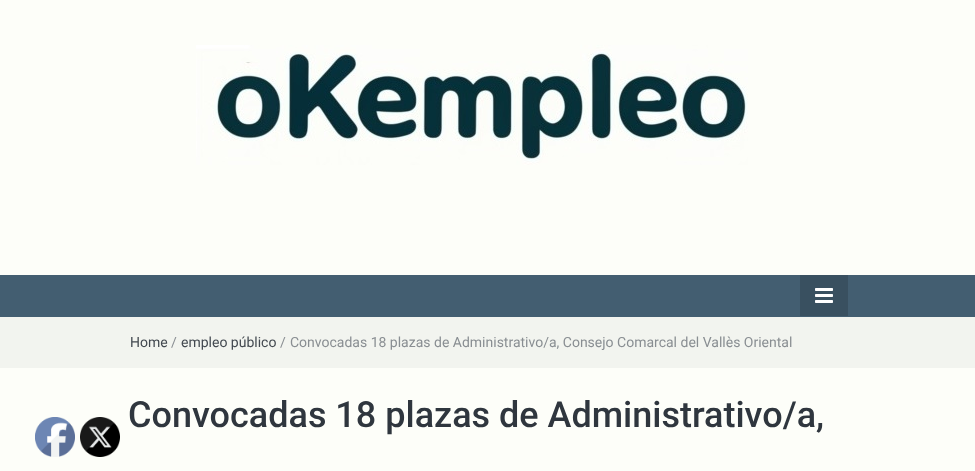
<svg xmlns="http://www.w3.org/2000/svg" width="975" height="471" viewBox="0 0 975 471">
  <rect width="100%" height="100%" fill="#fdfef9"/>
  <image x="35" y="417" width="40" height="40" href="img/1.png"/>
  <image x="80" y="417" width="40" height="40" href="img/2.png"/>
  <image x="196" y="45" width="552" height="120" href="img/3.png"/>
  <path d="M0 275h975v42H0z" fill="#435e71"/>
  <path d="M800 275h48v41H800z" fill="#395060"/>
  <image x="815" y="288" width="18" height="15" href="img/4.png"/>
  <path d="M0 317h975v51H0z" fill="#f2f4ef"/>
  <text x="130" y="347" font-family="Roboto" font-size="14" fill="#434950">Home</text>
  <text x="171" y="347" font-family="Roboto" font-size="14" fill="#898e92">/</text>
  <text x="181" y="347" font-family="Roboto" font-size="14" fill="#434950">empleo público</text>
  <g font-family="Roboto" font-size="14" fill="#898e92">
    <text x="280" y="347">/</text>
    <text x="290" y="347">Convocadas 18 plazas de Administrativo/a, Consejo Comarcal del Vallès Oriental</text>
  </g>
  <text x="128" y="427" font-family="Roboto" font-size="36" font-weight="500" fill="#2f363e">Convocadas 18 plazas de Administrativo/a,</text>
</svg>
